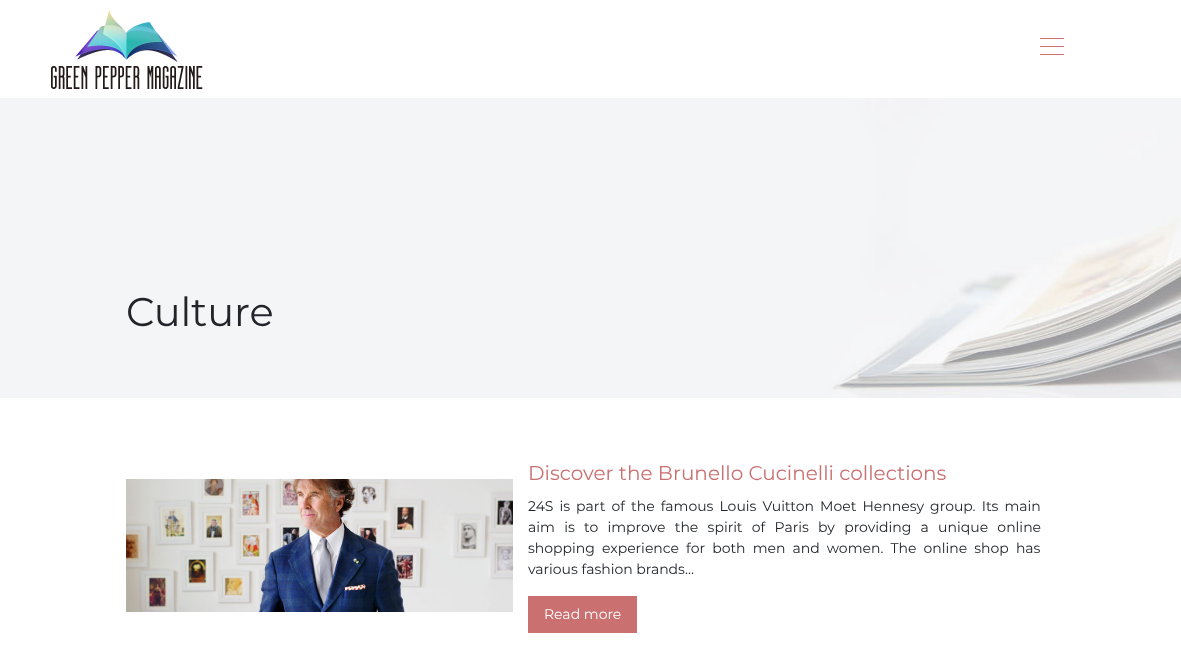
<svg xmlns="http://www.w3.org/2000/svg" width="1181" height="653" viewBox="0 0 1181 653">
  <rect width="100%" height="100%" fill="#fff"/>
  <image x="51" y="9" width="152" height="80" href="img/1.png"/>
  <path d="M1040 38h24v1H1040z" fill="#ca7071"/>
  <path d="M1040 46h24v1H1040z" fill="#ca7071"/>
  <path d="M1040 54h24v1H1040z" fill="#ca7071"/>
  <image x="0" y="98" width="1181" height="300" href="img/2.png"/>
  <image x="126" y="479" width="387" height="133" href="img/3.png"/>
  <path d="M528 596h109v37H528z" fill="#ca7071"/>
  <text x="126" y="326" font-family="Montserrat" font-size="40" fill="#212529">Culture</text>
  <text x="528" y="480" font-family="Montserrat" font-size="20" fill="#ca7071">Discover the Brunello Cucinelli collections</text>
  <g font-family="Montserrat" font-size="14" fill="#212529">
    <text x="528" y="511" word-spacing="2.4">24S is part of the famous Louis Vuitton Moet Hennesy group. Its main</text>
    <text x="528" y="532" word-spacing="5.6">aim is to improve the spirit of Paris by providing a unique online</text>
    <text x="528" y="553" word-spacing="3.4">shopping experience for both men and women. The online shop has</text>
    <text x="528" y="574">various fashion brands…</text>
  </g>
  <text x="544" y="619" font-family="Montserrat" font-size="14" fill="#fff">Read more</text>
</svg>
